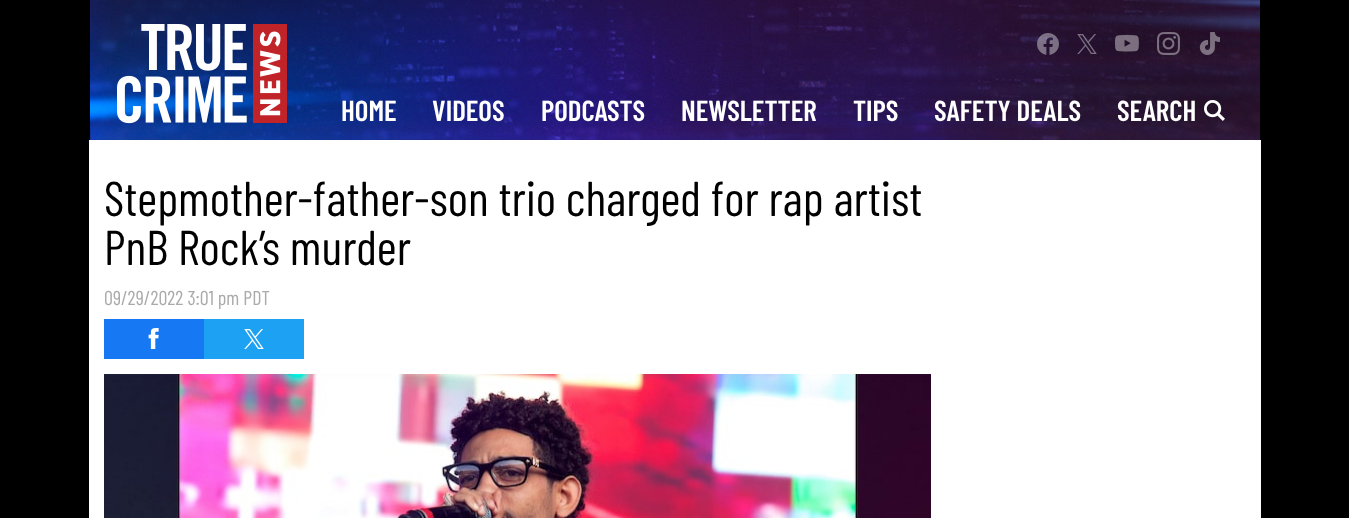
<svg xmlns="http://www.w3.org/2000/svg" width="1349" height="518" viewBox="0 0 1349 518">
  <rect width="100%" height="100%" fill="#000"/>
  <image x="90" y="0" width="1170" height="8" href="img/1.png"/>
  <image x="90" y="8" width="1170" height="132" href="img/2.png"/>
  <image x="117" y="24" width="170" height="100" href="img/3.png"/>
  <image x="1037" y="33" width="22" height="22" href="img/4.png"/>
  <image x="1077" y="34" width="20" height="20" href="img/5.png"/>
  <image x="1115" y="35" width="24" height="17" href="img/6.png"/>
  <image x="1157" y="32" width="23" height="23" href="img/7.png"/>
  <image x="1199" y="32" width="21" height="23" href="img/8.png"/>
  <image x="1204" y="100" width="21" height="21" href="img/9.png"/>
  <path d="M89 140h1172v378H89z" fill="#fff"/>
  <path d="M104 319h100v40H104z" fill="#1678f2"/>
  <image x="148" y="328" width="11" height="21" href="img/10.png"/>
  <path d="M204 319h100v40H204z" fill="#1da1f2"/>
  <image x="244" y="329" width="20" height="20" href="img/11.png"/>
  <image x="104" y="374" width="827" height="144" href="img/12.png"/>
  <g font-family="Barlow Condensed" font-size="29" font-weight="600" fill="#fff">
    <text x="341" y="121">HOME</text>
    <text x="432" y="121">VIDEOS</text>
    <text x="541" y="121">PODCASTS</text>
    <text x="681" y="121">NEWSLETTER</text>
    <text x="853" y="121">TIPS</text>
    <text x="934" y="121">SAFETY DEALS</text>
    <text x="1117" y="121">SEARCH</text>
  </g>
  <g font-family="Barlow Condensed" font-size="48.8" fill="#000">
    <text x="104" y="216">Stepmother-father-son trio charged for rap artist</text>
    <text x="104" y="265">PnB Rock’s murder</text>
  </g>
  <text x="104" y="305" font-family="Barlow Condensed" font-size="20" fill="#aaa">09/29/2022 3:01 pm PDT</text>
</svg>
